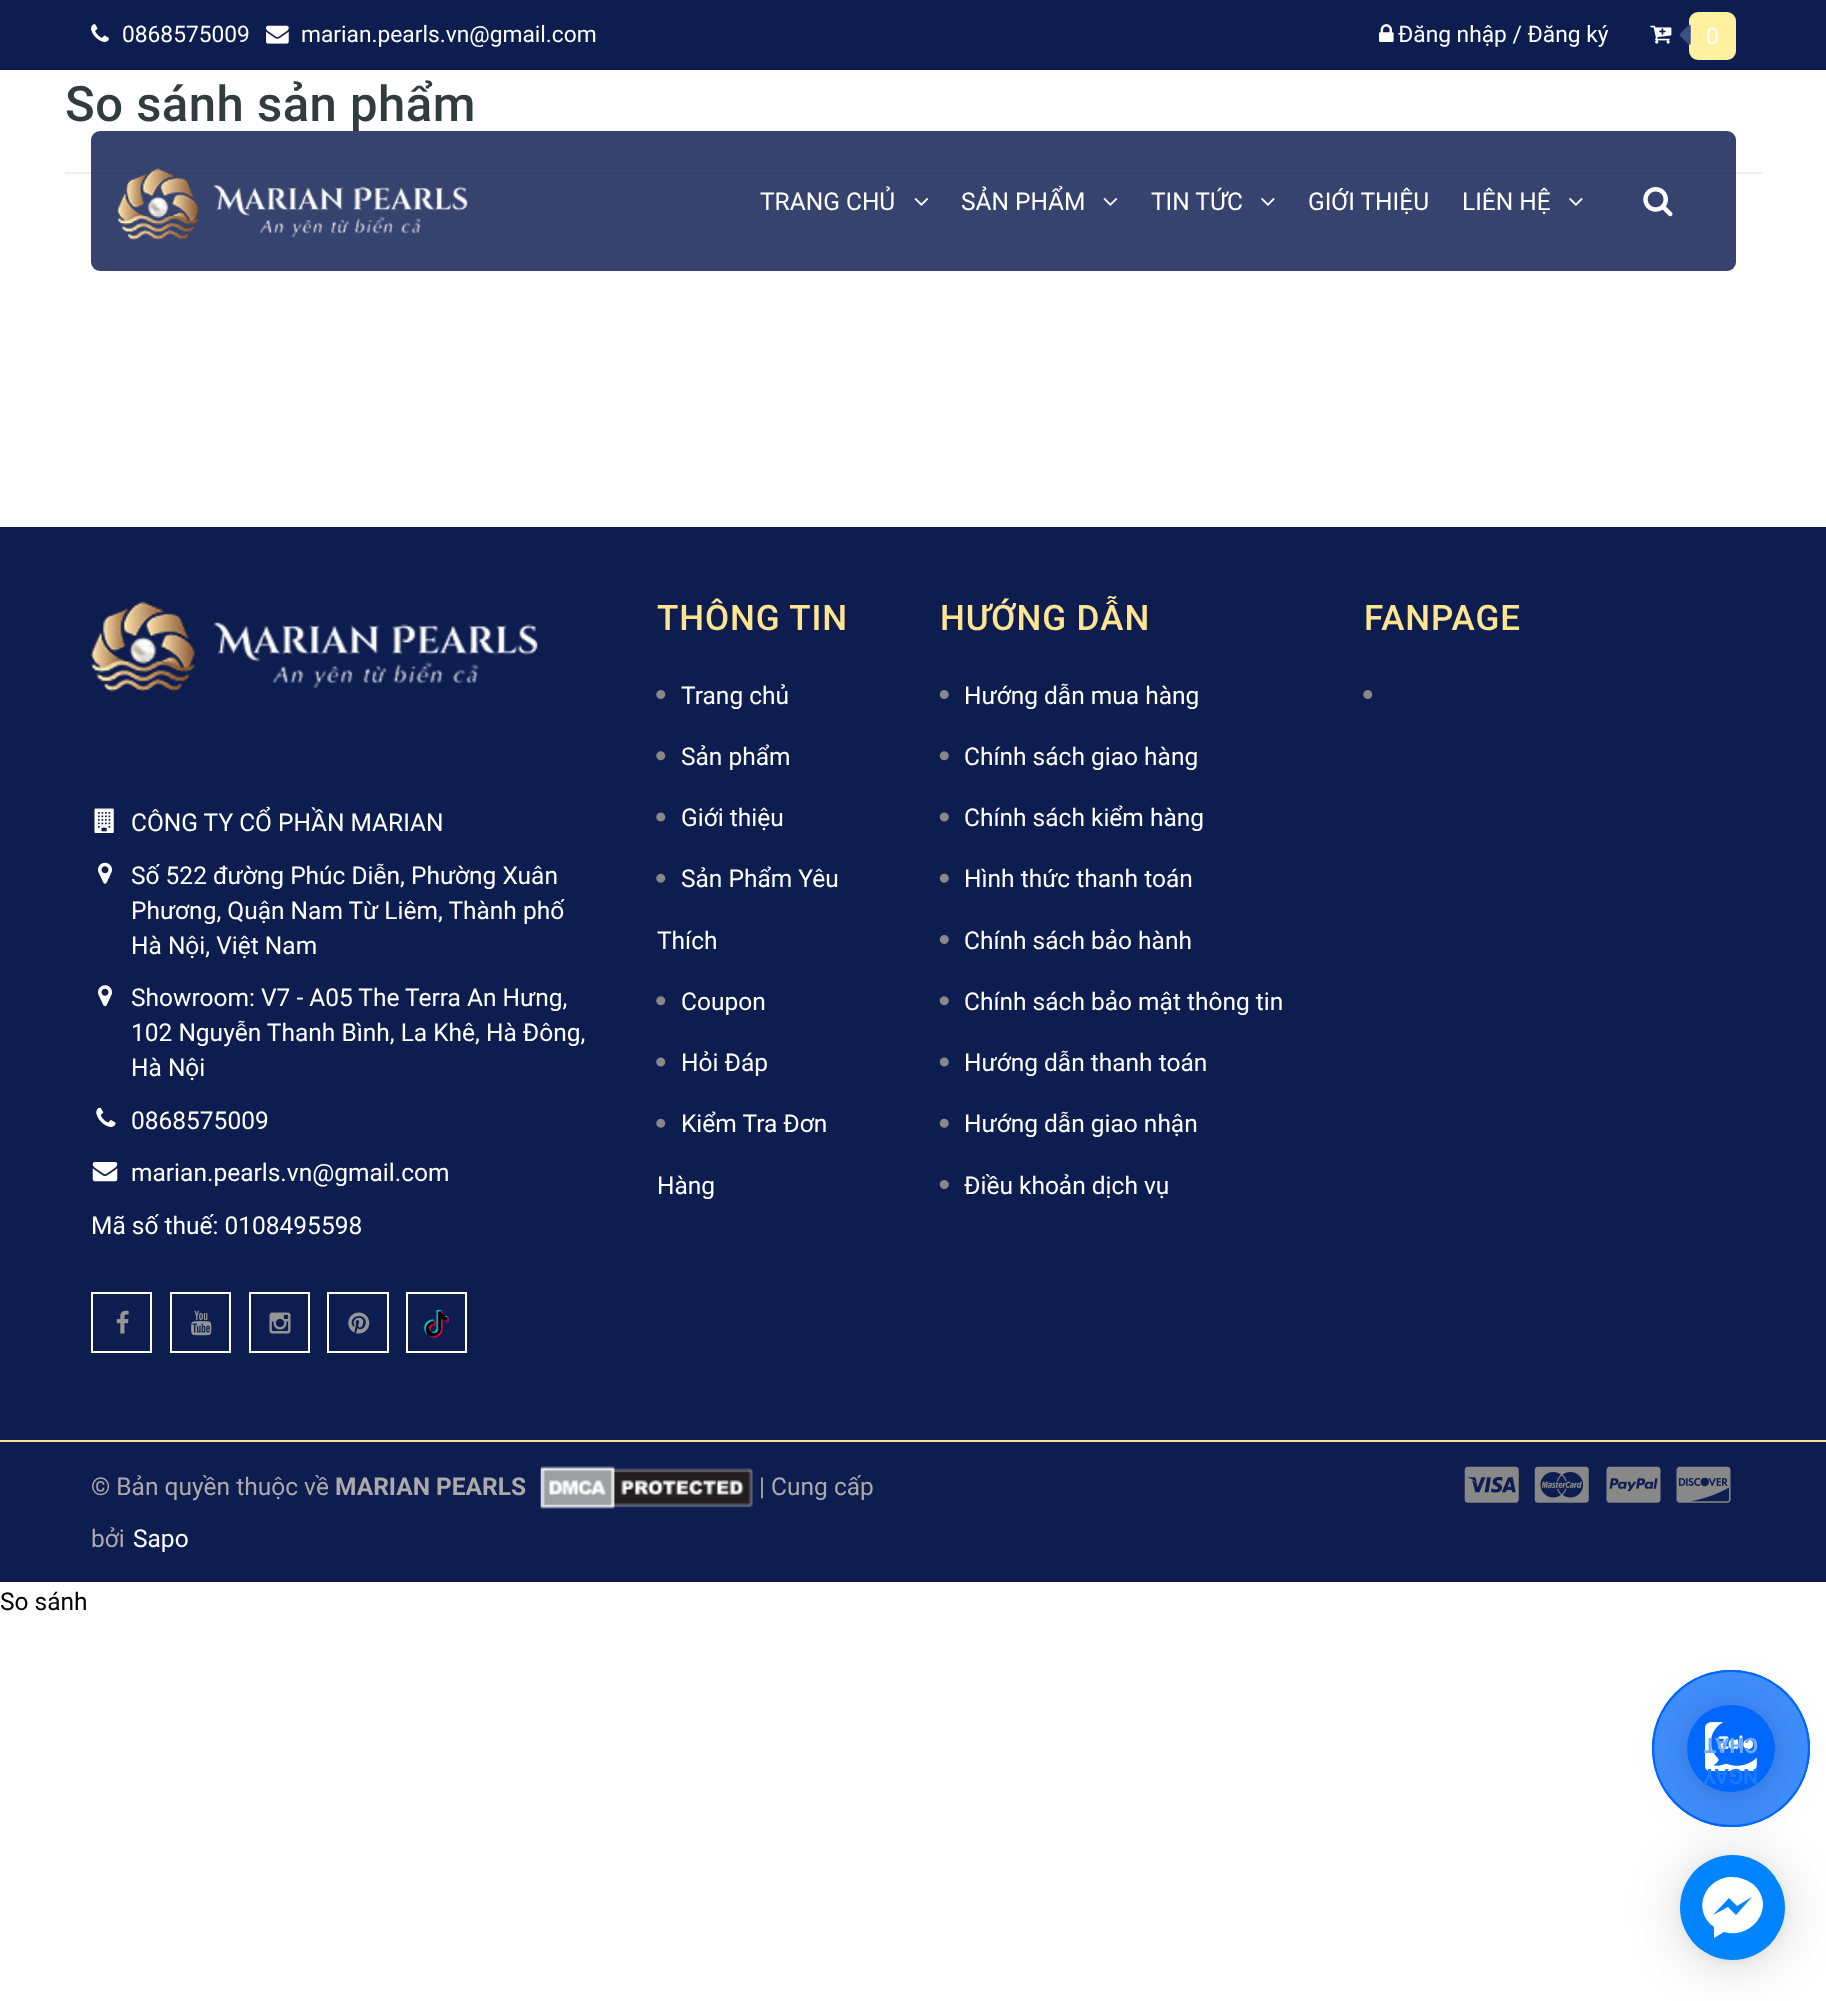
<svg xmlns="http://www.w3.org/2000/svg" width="1826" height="2001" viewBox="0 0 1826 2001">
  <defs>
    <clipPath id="clip1"><rect x="1680" y="1855" width="105" height="105" rx="52.5"/></clipPath>
  </defs>
  <rect width="100%" height="100%" fill="#fff"/>
  <path d="M0 0h1826v70H0z" fill="#0d1d50"/>
  <image x="91" y="24" width="18" height="18" href="img/1.png"/>
  <image x="266" y="25" width="23" height="19" href="img/2.png"/>
  <image x="1379" y="24" width="15" height="18" href="img/3.png"/>
  <image x="1650" y="25" width="22" height="19" href="img/4.png"/>
  <rect x="1689" y="12" width="47" height="48" rx="9" fill="#fff19f"/>
  <image x="1679" y="24" width="12" height="21" href="img/5.png"/>
  <path d="M65 172h1697v2H65z" fill="#eee"/>
  <rect x="91" y="131" width="1645" height="140" rx="9" fill="#0d1d50d4"/>
  <image x="117" y="168" width="351" height="72" href="img/6.png"/>
  <image x="914" y="198" width="15" height="8" href="img/7.png"/>
  <image x="1103" y="198" width="15" height="8" href="img/7.png"/>
  <image x="1261" y="198" width="14" height="8" href="img/8.png"/>
  <image x="1569" y="198" width="14" height="8" href="img/8.png"/>
  <image x="1643" y="187" width="30" height="30" href="img/9.png"/>
  <path d="M0 527h1826v1055H0z" fill="#0d1d50"/>
  <image x="656" y="690" width="10" height="9" href="img/10.png"/>
  <image x="656" y="751" width="10" height="10" href="img/11.png"/>
  <image x="656" y="812" width="10" height="10" href="img/12.png"/>
  <image x="656" y="873" width="10" height="10" href="img/13.png"/>
  <image x="656" y="996" width="10" height="10" href="img/11.png"/>
  <image x="656" y="1057" width="10" height="10" href="img/12.png"/>
  <image x="656" y="1118" width="10" height="10" href="img/13.png"/>
  <image x="939" y="690" width="10" height="9" href="img/14.png"/>
  <image x="939" y="751" width="10" height="10" href="img/15.png"/>
  <image x="939" y="812" width="10" height="10" href="img/16.png"/>
  <image x="939" y="873" width="10" height="10" href="img/17.png"/>
  <image x="939" y="935" width="10" height="9" href="img/14.png"/>
  <image x="939" y="996" width="10" height="10" href="img/15.png"/>
  <image x="939" y="1057" width="10" height="10" href="img/16.png"/>
  <image x="939" y="1118" width="10" height="10" href="img/17.png"/>
  <image x="939" y="1180" width="10" height="9" href="img/14.png"/>
  <image x="1363" y="690" width="10" height="9" href="img/10.png"/>
  <image x="91" y="601" width="447" height="91" href="img/18.png"/>
  <image x="94" y="808" width="20" height="25" href="img/19.png"/>
  <image x="98" y="862" width="14" height="22" href="img/20.png"/>
  <image x="98" y="985" width="14" height="22" href="img/21.png"/>
  <image x="96" y="1107" width="20" height="20" href="img/22.png"/>
  <image x="92" y="1162" width="26" height="20" href="img/23.png"/>
  <path d="M92 1293h59v59H92z" fill="none" stroke="#fff" stroke-width="2"/>
  <image x="116" y="1310" width="13" height="24" href="img/24.png"/>
  <path d="M171 1293h59v59H171z" fill="none" stroke="#fff" stroke-width="2"/>
  <image x="191" y="1310" width="21" height="26" href="img/25.png"/>
  <path d="M250 1293h59v59H250z" fill="none" stroke="#fff" stroke-width="2"/>
  <image x="269" y="1312" width="22" height="22" href="img/26.png"/>
  <path d="M328 1293h60v59H328z" fill="none" stroke="#fff" stroke-width="2"/>
  <image x="348" y="1312" width="22" height="22" href="img/27.png"/>
  <path d="M407 1293h59v59H407z" fill="none" stroke="#fff" stroke-width="2"/>
  <image x="423" y="1309" width="26" height="29" href="img/28.png"/>
  <path d="M0 1440h1826v2H0z" fill="#ffe492"/>
  <image x="540" y="1466" width="213" height="43" href="img/29.png"/>
  <image x="1464" y="1466" width="55" height="37" href="img/30.png"/>
  <image x="1534" y="1466" width="55" height="37" href="img/31.png"/>
  <image x="1606" y="1466" width="55" height="37" href="img/32.png"/>
  <image x="1676" y="1466" width="55" height="37" href="img/33.png"/>
  <rect x="1653" y="1671" width="156" height="155" rx="77.5" fill="#80b4ff" stroke="#0068ff" stroke-width="2"/>
  <rect x="1653" y="1671" width="156" height="155" rx="77.5" fill="#0068ff80" stroke="#0068ff" stroke-width="2"/>
  <rect x="1687" y="1708" width="88" height="88" rx="44" fill="#00000029" filter="blur(28px)"/>
  <rect x="1687" y="1706" width="88" height="88" rx="44" fill="#0000000f" filter="blur(5px)"/>
  <rect x="1687" y="1705" width="88" height="87" rx="43.5" fill="#0068ff"/>
  <image x="1705" y="1722" width="52" height="49" href="img/34.png"/>
  <rect x="1680" y="1859" width="105" height="105" rx="52.5" fill="#00000029" filter="blur(28px)"/>
  <rect x="1680" y="1857" width="105" height="105" rx="52.5" fill="#0000000f" filter="blur(5px)"/>
  <circle cx="1732.5" cy="1907.5" r="52.5" fill="#0084ff"/>
  <g clip-path="url(#clip1)">
    <path d="M1691 1866h84v84H1691z" fill="#0084ff"/>
  </g>
  <path d="M1732 1877C1705 1877 1691 1910 1714 1927V1938L1724 1932C1752 1940 1777 1907 1754 1885C1748 1880 1740 1877 1732 1877ZM1736 1915L1728 1907L1713 1915L1729 1898L1737 1906L1752 1897Z" fill="#fff"/>
  <g font-family="Roboto" font-size="22.75" fill="#fff">
    <text x="122" y="42">0868575009</text>
    <text x="301" y="42">marian.pearls.vn@gmail.com</text>
    <text x="1398" y="42">Đăng nhập / Đăng ký</text>
    <text x="1706" y="44">0</text>
  </g>
  <text x="65" y="121" font-family="Roboto" font-size="49" font-weight="500" letter-spacing="0.5" fill="#323c3f">So sánh sản phẩm</text>
  <g font-family="Roboto" font-size="24.5" fill="#fff">
    <text x="760" y="210">TRANG CHỦ</text>
    <text x="961" y="210">SẢN PHẨM</text>
    <text x="1151" y="210">TIN TỨC</text>
    <text x="1308" y="210">GIỚI THIỆU</text>
    <text x="1462" y="210">LIÊN HỆ</text>
  </g>
  <text x="657" y="630" font-family="Roboto" font-size="35" font-weight="500" letter-spacing="0.9" fill="#ffe492">THÔNG TIN</text>
  <g font-family="Roboto" font-size="24.5" fill="#fff">
    <text x="681" y="704">Trang chủ</text>
    <text x="681" y="765">Sản phẩm</text>
    <text x="681" y="826">Giới thiệu</text>
    <text x="681" y="887">Sản Phẩm Yêu</text>
    <text x="657" y="949">Thích</text>
    <text x="681" y="1010">Coupon</text>
    <text x="681" y="1071">Hỏi Đáp</text>
    <text x="681" y="1132">Kiểm Tra Đơn</text>
    <text x="657" y="1194">Hàng</text>
  </g>
  <text x="940" y="630" font-family="Roboto" font-size="35" font-weight="500" letter-spacing="0.9" fill="#ffe492">HƯỚNG DẪN</text>
  <g font-family="Roboto" font-size="24.5" fill="#fff">
    <text x="964" y="704">Hướng dẫn mua hàng</text>
    <text x="964" y="765">Chính sách giao hàng</text>
    <text x="964" y="826">Chính sách kiểm hàng</text>
    <text x="964" y="887">Hình thức thanh toán</text>
    <text x="964" y="949">Chính sách bảo hành</text>
    <text x="964" y="1010">Chính sách bảo mật thông tin</text>
    <text x="964" y="1071">Hướng dẫn thanh toán</text>
    <text x="964" y="1132">Hướng dẫn giao nhận</text>
    <text x="964" y="1194">Điều khoản dịch vụ</text>
  </g>
  <text x="1364" y="630" font-family="Roboto" font-size="35" font-weight="500" letter-spacing="0.9" fill="#ffe492">FANPAGE</text>
  <g font-family="Roboto" font-size="24.5" fill="#fff">
    <text x="131" y="831">CÔNG TY CỔ PHẦN MARIAN</text>
    <text x="131" y="884">Số 522 đường Phúc Diễn, Phường Xuân</text>
    <text x="131" y="919">Phương, Quận Nam Từ Liêm, Thành phố</text>
    <text x="131" y="954">Hà Nội, Việt Nam</text>
    <text x="131" y="1006">Showroom: V7 - A05 The Terra An Hưng,</text>
    <text x="131" y="1041">102 Nguyễn Thanh Bình, La Khê, Hà Đông,</text>
    <text x="131" y="1076">Hà Nội</text>
    <text x="131" y="1129">0868575009</text>
    <text x="131" y="1181">marian.pearls.vn@gmail.com</text>
    <text x="91" y="1234">Mã số thuế: 0108495598</text>
  </g>
  <text x="91" y="1495" font-family="Roboto" font-size="24.5" fill="#aba9a9">© Bản quyền thuộc về</text>
  <text x="335" y="1495" font-family="Roboto" font-size="24.5" font-weight="bold" fill="#aba9a9">MARIAN PEARLS</text>
  <g font-family="Roboto" font-size="24.5" fill="#aba9a9">
    <text x="759" y="1495">| Cung cấp</text>
    <text x="91" y="1547">bởi</text>
  </g>
  <text x="133" y="1547" font-family="Roboto" font-size="24.5" fill="#fff">Sapo</text>
  <text x="0" y="1610" font-family="Roboto" font-size="24.5" fill="#000">So sánh</text>
  <text x="1758" y="1738" transform="rotate(180 1758 1738)" font-family="Roboto" font-size="21" font-weight="bold" fill="#71abff">CHAT</text>
  <text x="1758" y="1769" transform="rotate(180 1758 1769)" font-family="Roboto" font-size="21" font-weight="bold" fill="#1e7aff">NGAY</text>
</svg>
